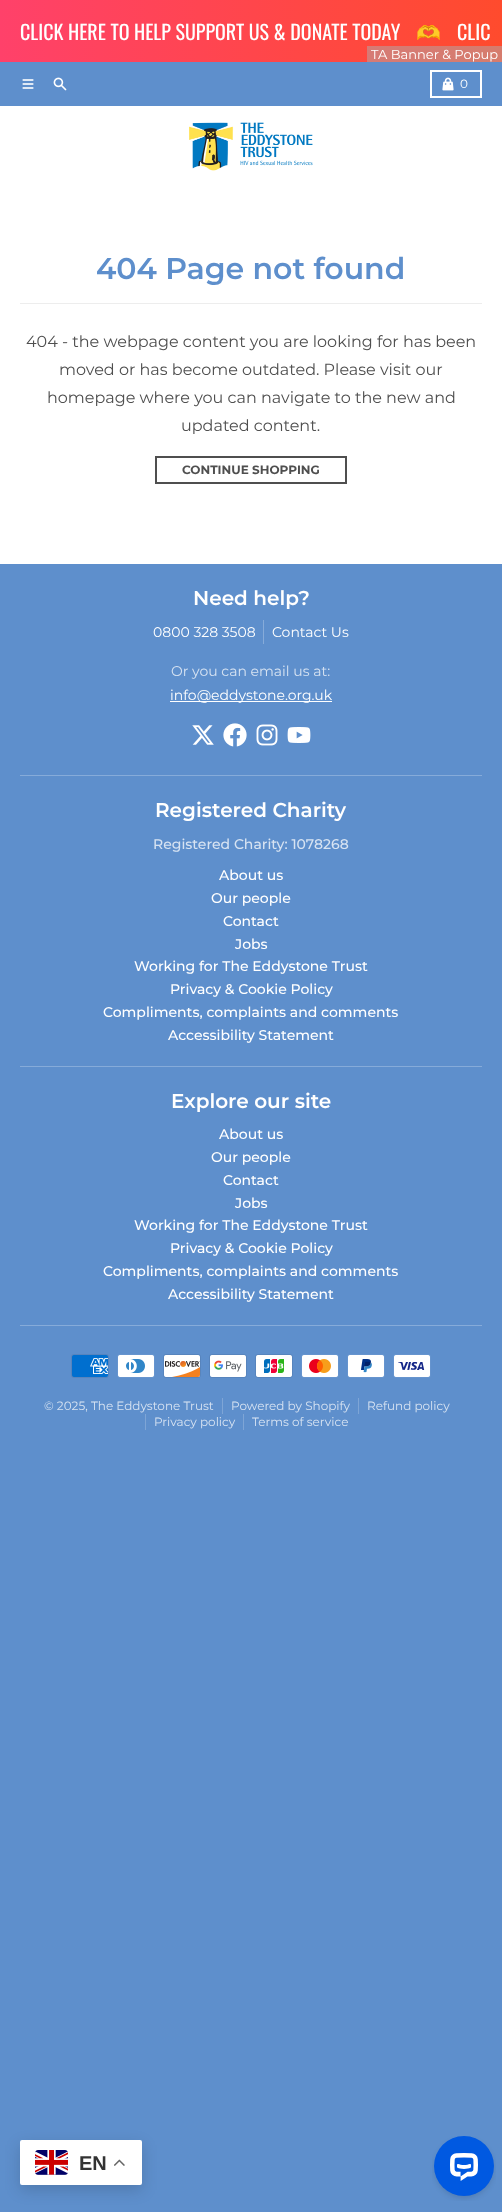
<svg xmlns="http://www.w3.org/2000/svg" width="502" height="2212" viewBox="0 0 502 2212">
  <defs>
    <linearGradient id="g1" gradientUnits="userSpaceOnUse" x1="0" y1="31" x2="502" y2="31"><stop offset="0" stop-color="#ff416a"/><stop offset="1" stop-color="#ff4b2d"/></linearGradient>
    <linearGradient id="g2" gradientUnits="userSpaceOnUse" x1="0" y1="31" x2="502" y2="31"><stop offset="0" stop-color="#d6778c"/><stop offset="1" stop-color="#d67c6d"/></linearGradient>
  </defs>
  <rect width="100%" height="100%" fill="#5e8fcc"/>
  <path d="M0 0h502v62H0z" fill="url(#g1)"/>
  <path d="M367 46h135v16H367z" fill="url(#g2)"/>
  <image x="22" y="79" width="12" height="10" href="img/1.png"/>
  <image x="53" y="77" width="14" height="14" href="img/2.png"/>
  <path d="M431 71h50v26H431z" fill="none" stroke="#fff" stroke-width="2"/>
  <image x="442" y="77" width="12" height="14" href="img/3.png"/>
  <path d="M0 106h502v458H0z" fill="#fff"/>
  <image x="189" y="122" width="124" height="49" href="img/4.png"/>
  <path d="M20 303h462v1H20z" fill="#ededed"/>
  <path d="M156 457h190v26H156z" fill="none" stroke="#4f4f4f" stroke-width="2"/>
  <path d="M263 620h1v24H263z" fill="#86abd9"/>
  <path d="M170 701h162v1H170z" fill="#fff"/>
  <image x="192" y="725" width="22" height="20" href="img/5.png"/>
  <image x="223" y="723" width="24" height="24" href="img/6.png"/>
  <image x="256" y="724" width="22" height="22" href="img/7.png"/>
  <image x="287" y="727" width="24" height="16" href="img/8.png"/>
  <path d="M20 775h462v1H20z" fill="#86abd9"/>
  <path d="M20 1066h462v1H20z" fill="#86abd9"/>
  <path d="M20 1325h462v1H20z" fill="#86abd9"/>
  <image x="71" y="1354" width="38" height="24" href="img/9.png"/>
  <image x="117" y="1354" width="38" height="24" href="img/10.png"/>
  <image x="163" y="1354" width="38" height="24" href="img/11.png"/>
  <image x="209" y="1354" width="38" height="24" href="img/12.png"/>
  <image x="255" y="1354" width="38" height="24" href="img/13.png"/>
  <image x="301" y="1354" width="38" height="24" href="img/14.png"/>
  <image x="347" y="1354" width="38" height="24" href="img/15.png"/>
  <image x="393" y="1354" width="38" height="24" href="img/16.png"/>
  <path d="M222 1398h1v16H222z" fill="#7ea5d6"/>
  <path d="M358 1398h1v16H358z" fill="#7ea5d6"/>
  <path d="M145 1414h1v16H145z" fill="#7ea5d6"/>
  <path d="M243 1414h1v16H243z" fill="#7ea5d6"/>
  <rect x="20" y="2145" width="122" height="45" rx="2" fill="#00000026" filter="blur(7.5px)"/>
  <rect x="20" y="2140" width="122" height="45" rx="2" fill="#fff"/>
  <image x="35" y="2150" width="33" height="25" href="img/17.png"/>
  <image x="114" y="2159" width="11" height="7" href="img/18.png"/>
  <image x="432" y="2136" width="64" height="65" href="img/19.png"/>
  <text x="20" y="40" font-family="Oswald" font-size="20" fill="#fff">CLICK HERE TO HELP SUPPORT US &amp; DONATE TODAY</text>
  <text x="416" y="40" font-family="Noto Color Emoji" font-size="20" fill="#fff">🫶</text>
  <text x="457" y="40" font-family="Oswald" font-size="20" fill="#fff">CLIC</text>
  <text x="371" y="59" font-family="Montserrat" font-size="13" fill="#fff">TA Banner &amp; Popup</text>
  <text x="460" y="88" font-family="Montserrat" font-size="12" fill="#fff">0</text>
  <text x="96" y="279" font-family="Montserrat" font-size="30" font-weight="600" fill="#5e8fcc">404 Page not found</text>
  <g font-family="Montserrat" font-size="16" fill="#4f4f4f">
    <text x="26" y="347">404 - the webpage content you are looking for has been</text>
    <text x="59" y="375">moved or has become outdated. Please visit our</text>
    <text x="47" y="403">homepage where you can navigate to the new and</text>
    <text x="181" y="431">updated content.</text>
  </g>
  <text x="182" y="474" font-family="Montserrat" font-size="12" font-weight="bold" fill="#4f4f4f">CONTINUE SHOPPING</text>
  <text x="193" y="605" font-family="Montserrat" font-size="20" font-weight="600" fill="#fff">Need help?</text>
  <g font-family="Montserrat" font-size="14" fill="#fff">
    <text x="153" y="637">0800 328 3508</text>
    <text x="272" y="637">Contact Us</text>
  </g>
  <text x="171" y="676" font-family="Montserrat" font-size="14" fill="#d7e3f2">Or you can email us at:</text>
  <text x="170" y="700" font-family="Montserrat" font-size="14" fill="#fff">info@eddystone.org.uk</text>
  <text x="155" y="817" font-family="Montserrat" font-size="20" font-weight="600" fill="#fff">Registered Charity</text>
  <text x="153" y="849" font-family="Montserrat" font-size="14" font-weight="500" fill="#d7e3f2">Registered Charity: 1078268</text>
  <g font-family="Montserrat" font-size="14" font-weight="500" fill="#fff">
    <text x="219" y="880">About us</text>
    <text x="211" y="903">Our people</text>
    <text x="223" y="926">Contact</text>
    <text x="235" y="949">Jobs</text>
    <text x="134" y="971">Working for The Eddystone Trust</text>
    <text x="170" y="994">Privacy &amp; Cookie Policy</text>
    <text x="103" y="1017">Compliments, complaints and comments</text>
    <text x="168" y="1040">Accessibility Statement</text>
  </g>
  <text x="171" y="1108" font-family="Montserrat" font-size="20" font-weight="600" fill="#fff">Explore our site</text>
  <g font-family="Montserrat" font-size="14" font-weight="500" fill="#fff">
    <text x="219" y="1139">About us</text>
    <text x="211" y="1162">Our people</text>
    <text x="223" y="1185">Contact</text>
    <text x="235" y="1208">Jobs</text>
    <text x="134" y="1230">Working for The Eddystone Trust</text>
    <text x="170" y="1253">Privacy &amp; Cookie Policy</text>
    <text x="103" y="1276">Compliments, complaints and comments</text>
    <text x="168" y="1299">Accessibility Statement</text>
  </g>
  <g font-family="Montserrat" font-size="12" fill="#d7e3f2">
    <text x="44" y="1410">© 2025, The Eddystone Trust</text>
    <text x="231" y="1410">Powered by Shopify</text>
    <text x="367" y="1410">Refund policy</text>
    <text x="154" y="1426">Privacy policy</text>
    <text x="252" y="1426">Terms of service</text>
  </g>
  <text x="79" y="2170" font-family="Liberation Sans" font-size="20" font-weight="bold" fill="#333">EN</text>
</svg>
